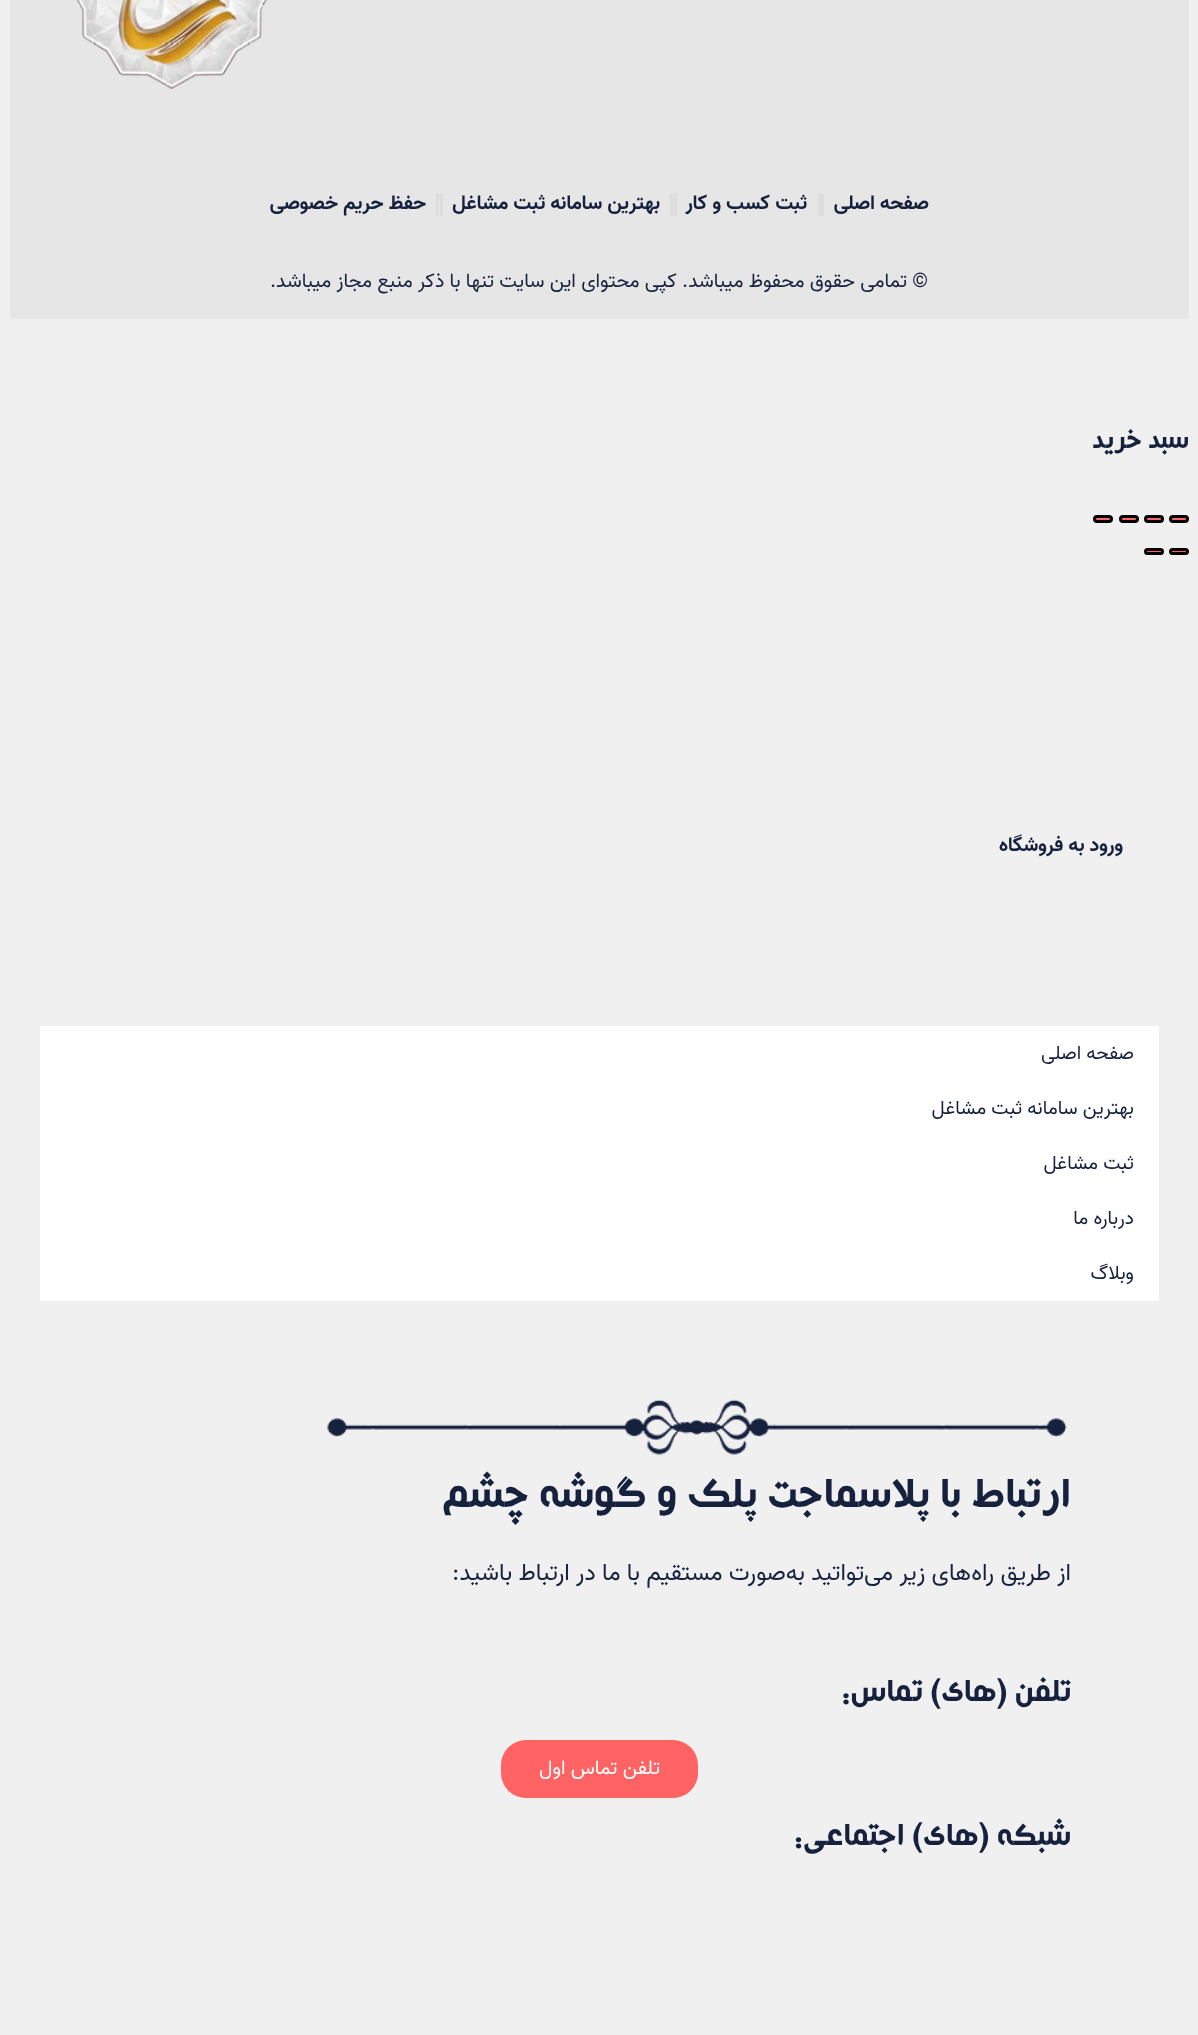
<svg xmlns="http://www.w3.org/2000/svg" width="1198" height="2035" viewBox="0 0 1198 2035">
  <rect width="100%" height="100%" fill="#f0f0f0"/>
  <path d="M10 0h1179v319H10z" fill="#e6e6e6"/>
  <image x="76" y="0" width="191" height="89" href="img/1.png"/>
  <path d="M818 193h6v23H818z" fill="#ddd"/>
  <path d="M670 193h3v23H670z" fill="#ddd"/>
  <path d="M674 193h3v23H674z" fill="#ddd"/>
  <path d="M436 193h3v23H436z" fill="#ddd"/>
  <path d="M440 193h3v23H440z" fill="#ddd"/>
  <rect x="1170.5" y="516.5" width="17" height="5" rx="2.5" fill="#ff6363" stroke="#000" stroke-width="3"/>
  <rect x="1145.5" y="516.5" width="17" height="5" rx="2.5" fill="#ff6363" stroke="#000" stroke-width="3"/>
  <rect x="1120.5" y="516.5" width="17" height="5" rx="2.5" fill="#ff6363" stroke="#000" stroke-width="3"/>
  <rect x="1094.5" y="516.5" width="17" height="5" rx="2.5" fill="#ff6363" stroke="#000" stroke-width="3"/>
  <rect x="1170.5" y="549.5" width="17" height="4" rx="2" fill="#ff6363" stroke="#000" stroke-width="3"/>
  <rect x="1145.5" y="549.5" width="17" height="4" rx="2" fill="#ff6363" stroke="#000" stroke-width="3"/>
  <path d="M40 1026h1119v275H40z" fill="#fff"/>
  <image x="327" y="1399" width="740" height="56" href="img/2.png"/>
  <rect x="501" y="1740" width="197" height="58" rx="25" fill="#ff6363"/>
  <g font-family="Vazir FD" font-size="20" font-weight="bold" direction="rtl" fill="#16213e">
    <text x="929" y="209">صفحه اصلی</text>
    <text x="807" y="209">ثبت کسب و کار</text>
    <text x="660" y="209">بهترین سامانه ثبت مشاغل</text>
    <text x="426" y="209">حفظ حریم خصوصی</text>
  </g>
  <text x="928" y="287" font-family="Vazir FD" font-size="20" direction="rtl" fill="#16213e">© تمامی حقوق محفوظ میباشد. کپی محتوای این سایت تنها با ذکر منبع مجاز میباشد.</text>
  <text x="1189" y="448" font-family="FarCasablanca" font-size="30" direction="rtl" fill="#16213e">سبد خرید</text>
  <text x="1123" y="851" font-family="Vazir FD" font-size="20" font-weight="bold" direction="rtl" fill="#16213e">ورود به فروشگاه</text>
  <g font-family="Vazir FD" font-size="19.5" direction="rtl" fill="#16213e">
    <text x="1134" y="1059">صفحه اصلی</text>
    <text x="1134" y="1114">بهترین سامانه ثبت مشاغل</text>
    <text x="1134" y="1169">ثبت مشاغل</text>
    <text x="1134" y="1224">درباره ما</text>
    <text x="1134" y="1279">وبلاگ</text>
  </g>
  <text x="1071" y="1507" font-family="FarCasablanca" font-size="48" direction="rtl" fill="#16213e">ارتباط با پلاسماجت پلک و گوشه چشم</text>
  <text x="1071" y="1580" font-family="Vazir FD" font-size="24" direction="rtl" fill="#16213e">از طریق راه‌های زیر می‌تواتید به‌صورت مستقیم با ما در ارتباط باشید:</text>
  <text x="1071" y="1701" font-family="FarCasablanca" font-size="36" direction="rtl" fill="#16213e">تلفن (های) تماس:</text>
  <text x="660" y="1774" font-family="Vazir FD" font-size="20" direction="rtl" fill="#fff">تلفن تماس اول</text>
  <text x="1071" y="1845" font-family="FarCasablanca" font-size="36" direction="rtl" fill="#16213e">شبکه (های) اجتماعی:</text>
</svg>
